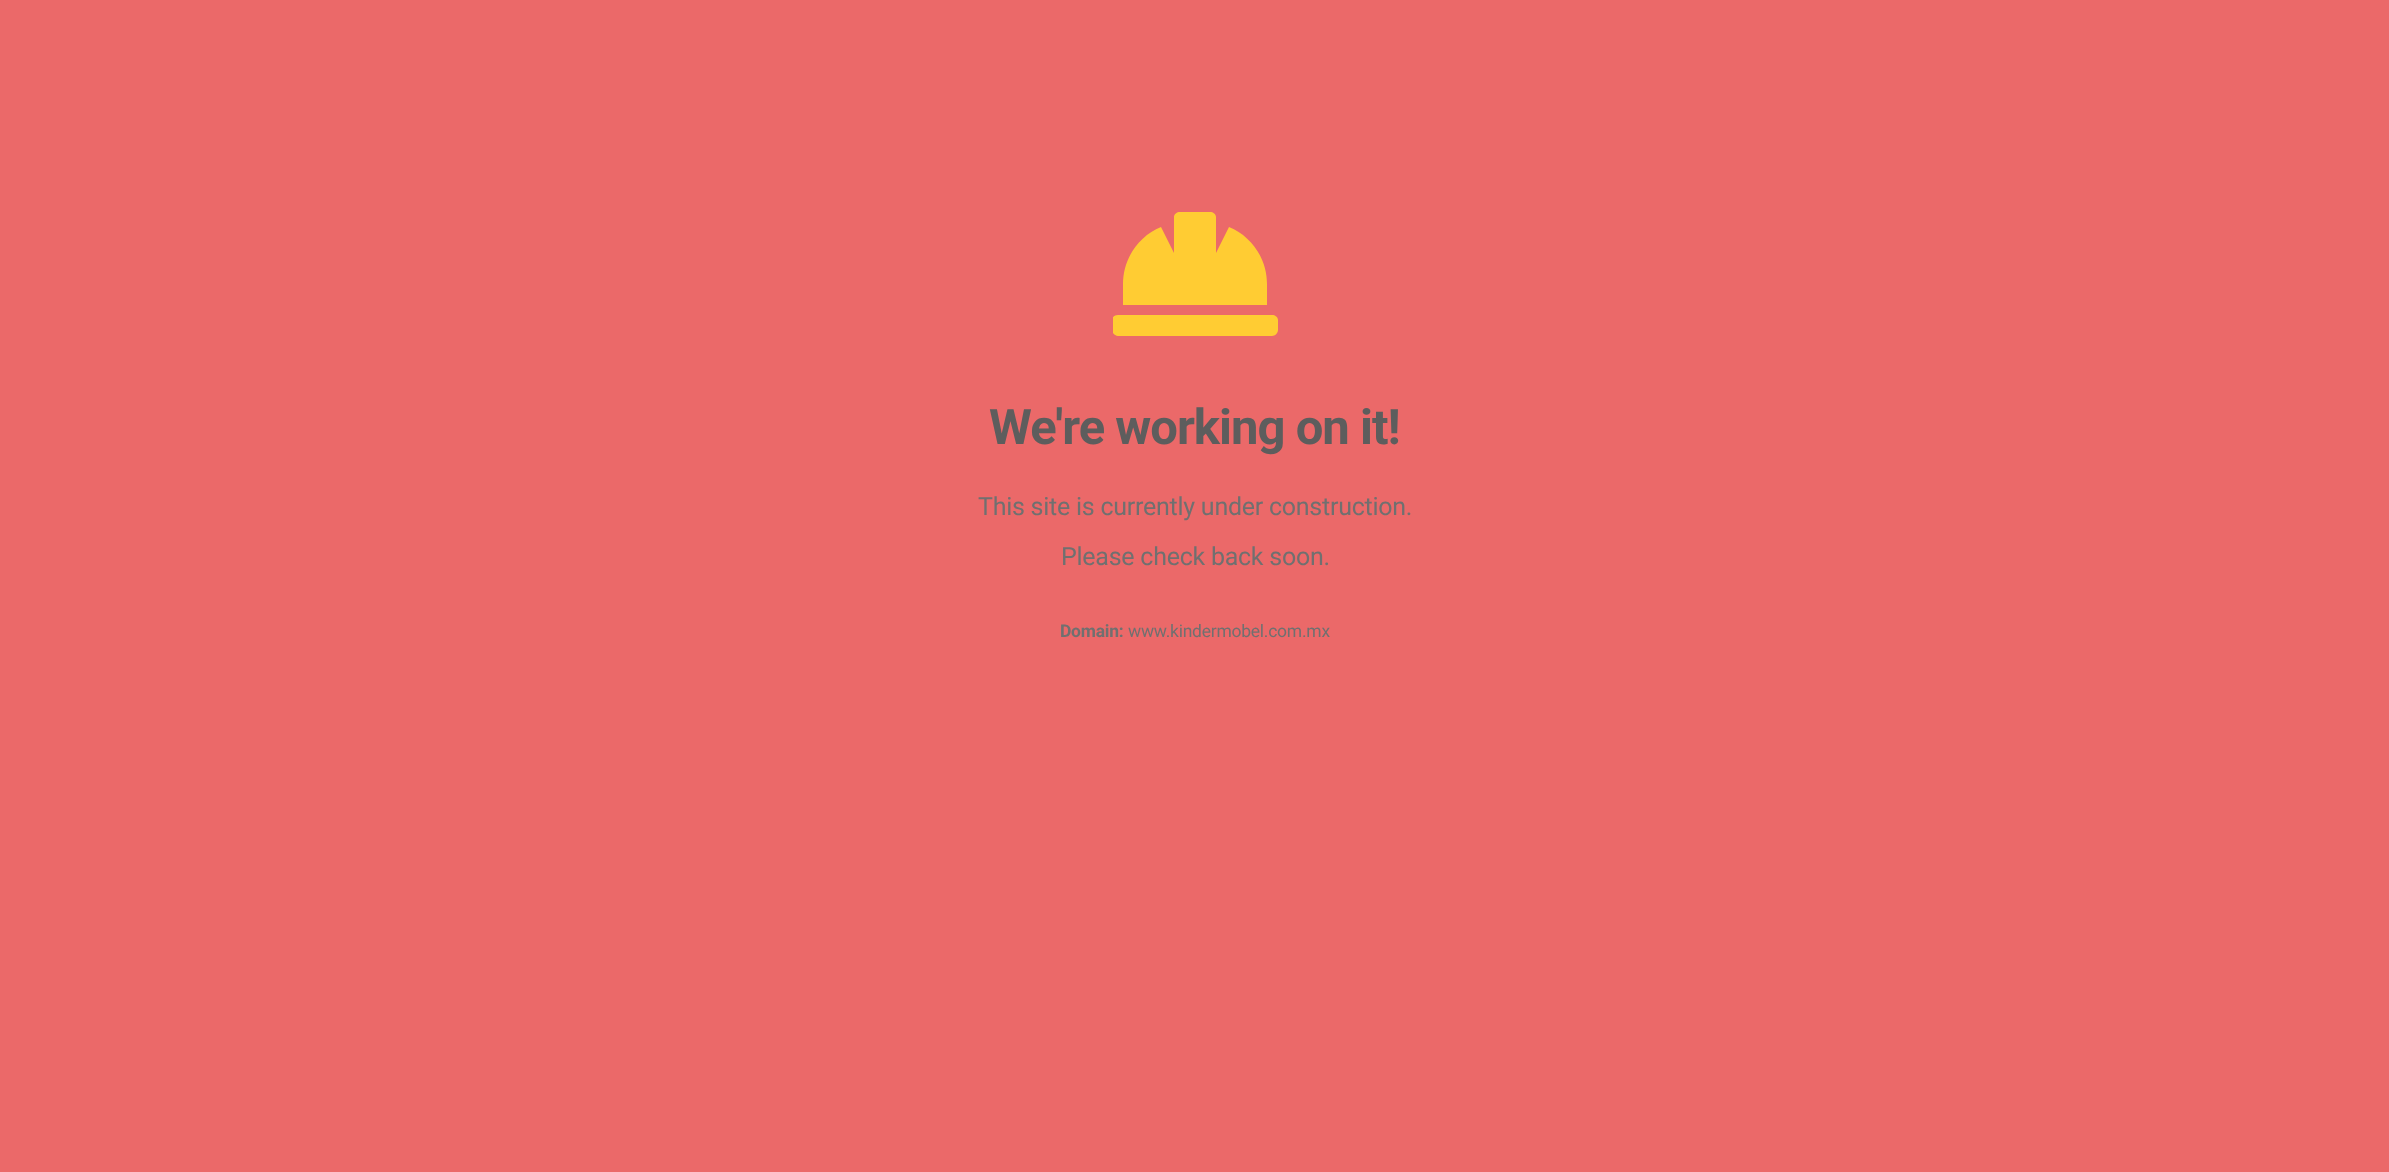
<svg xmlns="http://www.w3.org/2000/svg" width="2389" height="1172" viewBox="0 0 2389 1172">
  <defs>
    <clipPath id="clip1"><path d="M1113 191h165v165H1113z"/></clipPath>
  </defs>
  <rect width="100%" height="100%" fill="#eb6969"/>
  <g clip-path="url(#clip1)">
    <path d="M1267 284C1267 258 1251 236 1229 227L1216 253V217C1216 214 1213 212 1210 212H1180C1177 212 1174 214 1174 217V253L1161 227C1139 236 1123 258 1123 284V305H1267ZM1272 315H1118C1115 315 1112 317 1112 320V330C1112 333 1115 336 1118 336H1272C1275 336 1278 333 1278 330V320C1278 317 1275 315 1272 315Z" fill="#fc3"/>
  </g>
  <text x="989" y="444" font-family="Roboto" font-size="49" font-weight="bold" letter-spacing="-1" fill="#5d5d5d">We're working on it!</text>
  <g font-family="Roboto" font-size="25" letter-spacing="-0.25" fill="#707070">
    <text x="978" y="515">This site is currently under construction.</text>
    <text x="1061" y="565">Please check back soon.</text>
  </g>
  <text x="1060" y="637" font-family="Roboto" font-size="17.5" font-weight="bold" letter-spacing="-0.25" fill="#707070">Domain:</text>
  <text x="1128" y="637" font-family="Roboto" font-size="17.5" letter-spacing="-0.25" fill="#707070">www.kindermobel.com.mx</text>
</svg>
